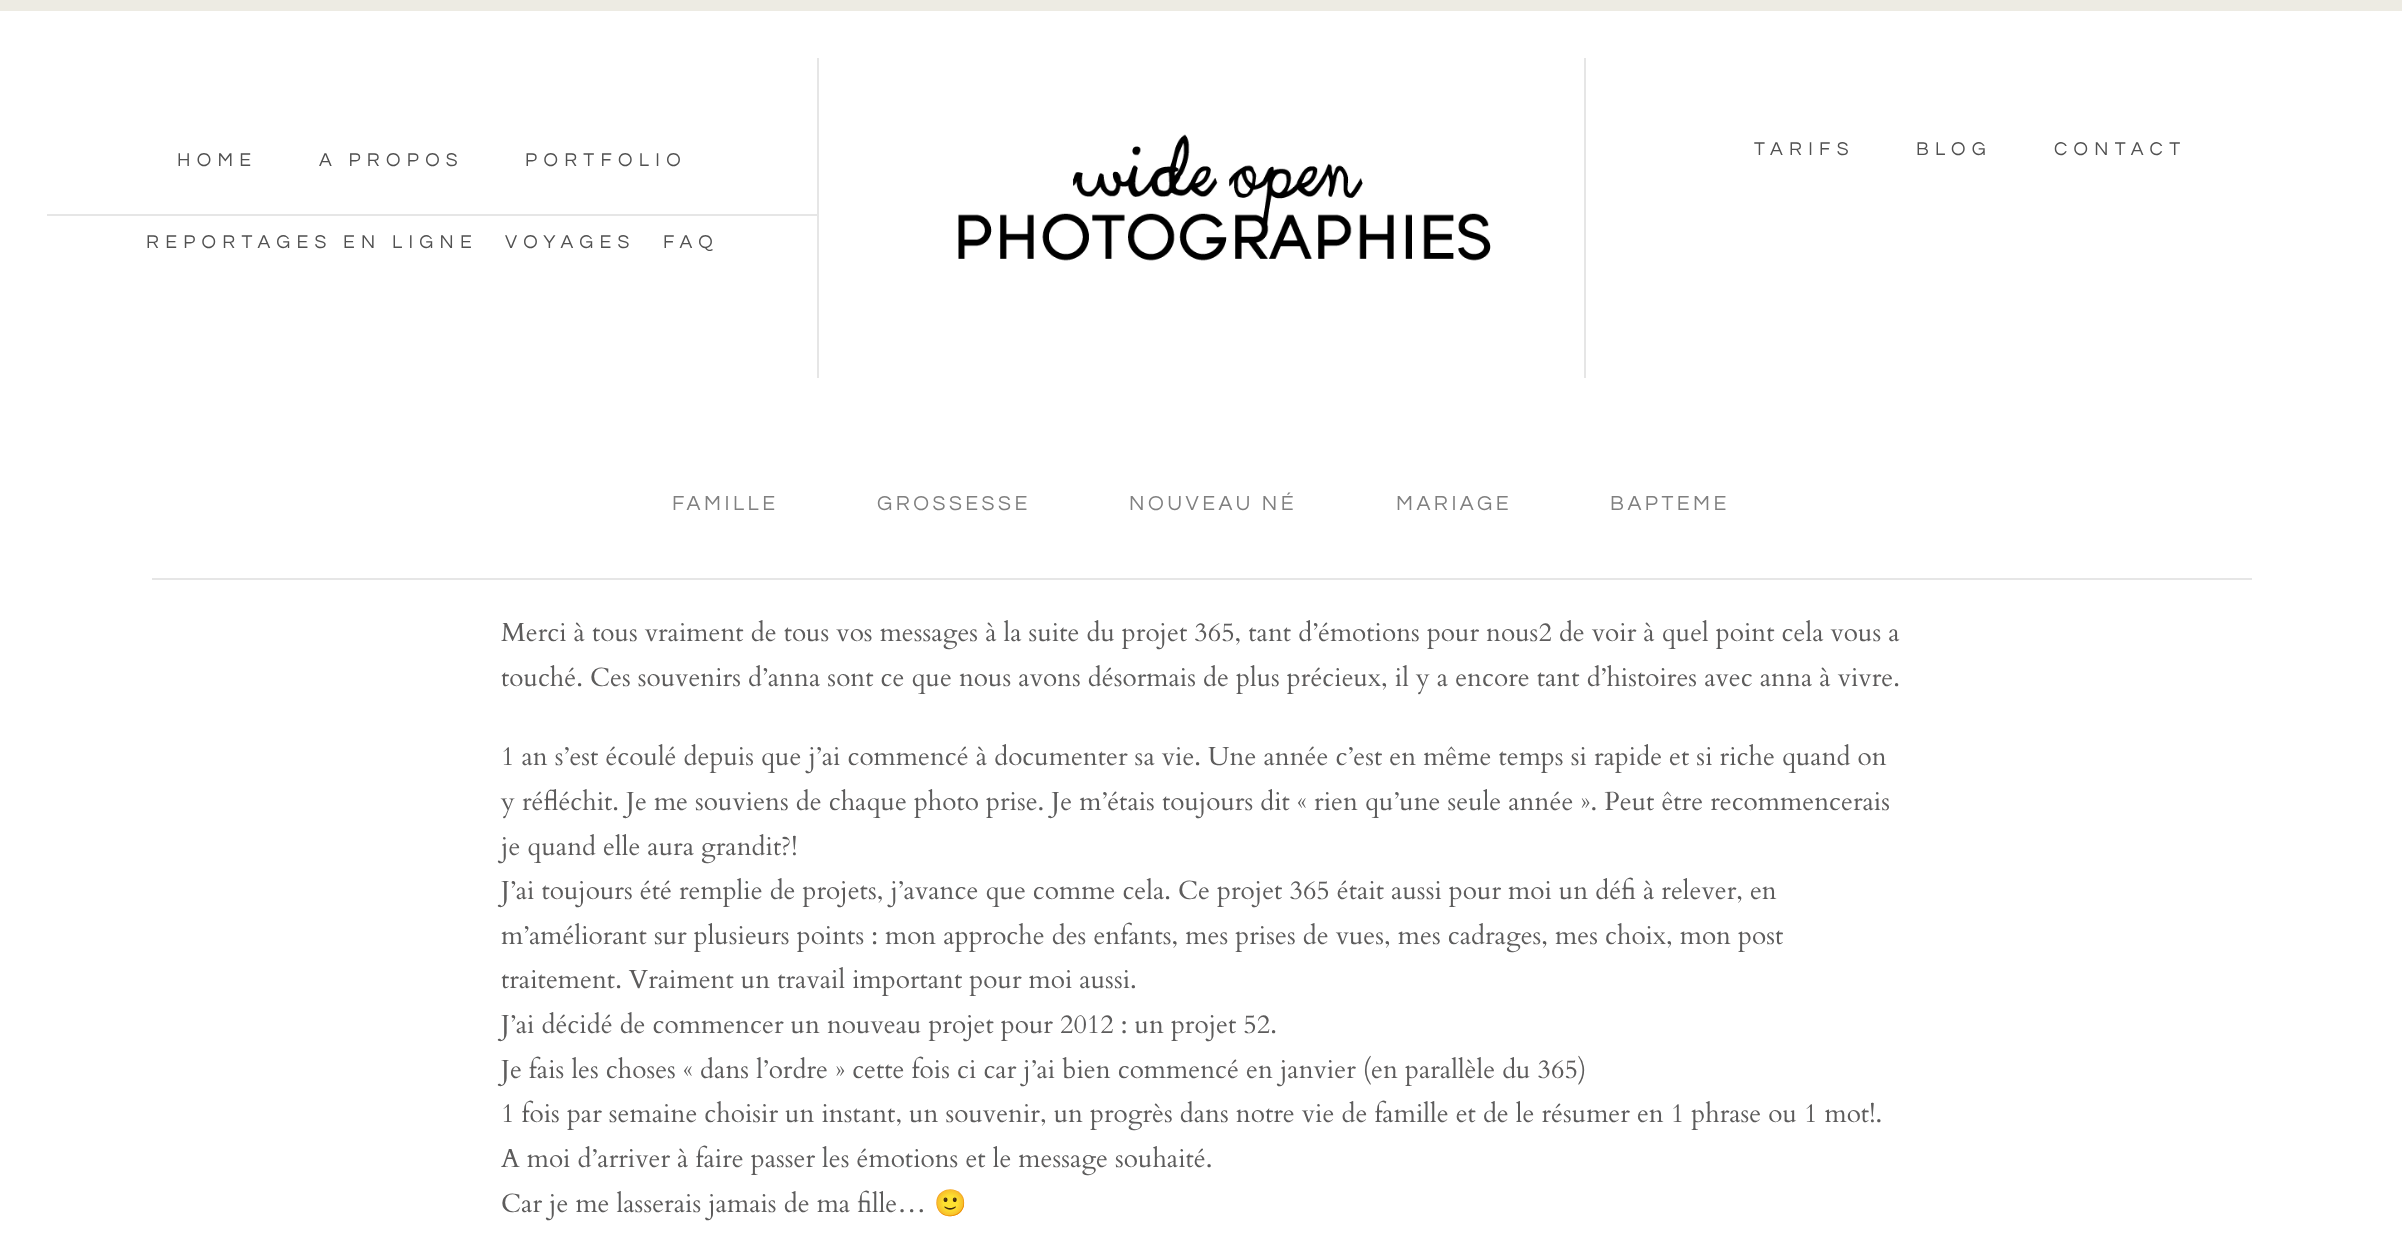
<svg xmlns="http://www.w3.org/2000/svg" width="2402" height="1256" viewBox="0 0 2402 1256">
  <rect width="100%" height="100%" fill="#fff"/>
  <path d="M0 0h2402v11H0z" fill="#edebe3"/>
  <path d="M1584 58h2v320H1584z" fill="#e6e6e6"/>
  <path d="M817 58h2v320H817z" fill="#e6e6e6"/>
  <image x="958" y="134" width="533" height="127" href="img/1.png"/>
  <path d="M47 214h770v2H47z" fill="#e6e6e6"/>
  <path d="M152 578h2100v2H152z" fill="#e6e6e6"/>
  <g font-family="Questrial" font-size="19.25" letter-spacing="6.3" fill="#515151">
    <text x="1754" y="155">TARIFS</text>
    <text x="1916" y="155">BLOG</text>
    <text x="2054" y="155">CONTACT</text>
    <text x="177" y="166">HOME</text>
    <text x="319" y="166">A PROPOS</text>
    <text x="525" y="166">PORTFOLIO</text>
    <text x="146" y="248">REPORTAGES EN LIGNE</text>
    <text x="505" y="248">VOYAGES</text>
    <text x="663" y="248">FAQ</text>
  </g>
  <g font-family="Questrial" font-size="21" letter-spacing="3.5" fill="#808080">
    <text x="672" y="510">FAMILLE</text>
    <text x="877" y="510">GROSSESSE</text>
    <text x="1129" y="510">NOUVEAU NÉ</text>
    <text x="1396" y="510">MARIAGE</text>
    <text x="1610" y="510">BAPTEME</text>
  </g>
  <g font-family="Cardo" font-size="26.25" fill="#5d5c5c">
    <text x="501" y="641">Merci à tous vraiment de tous vos messages à la suite du projet 365, tant d’émotions pour nous2 de voir à quel point cela vous a</text>
    <text x="501" y="686">touché. Ces souvenirs d’anna sont ce que nous avons désormais de plus précieux, il y a encore tant d’histoires avec anna à vivre.</text>
    <text x="501" y="765">1 an s’est écoulé depuis que j’ai commencé à documenter sa vie. Une année c’est en même temps si rapide et si riche quand on</text>
    <text x="501" y="810">y réfléchit. Je me souviens de chaque photo prise. Je m’étais toujours dit « rien qu’une seule année ». Peut être recommencerais</text>
    <text x="501" y="855">je quand elle aura grandit?!</text>
    <text x="501" y="899">J’ai toujours été remplie de projets, j’avance que comme cela. Ce projet 365 était aussi pour moi un défi à relever, en</text>
    <text x="501" y="944">m’améliorant sur plusieurs points : mon approche des enfants, mes prises de vues, mes cadrages, mes choix, mon post</text>
    <text x="501" y="988">traitement. Vraiment un travail important pour moi aussi.</text>
    <text x="501" y="1033">J’ai décidé de commencer un nouveau projet pour 2012 : un projet 52.</text>
    <text x="501" y="1078">Je fais les choses « dans l’ordre » cette fois ci car j’ai bien commencé en janvier (en parallèle du 365)</text>
    <text x="501" y="1122">1 fois par semaine choisir un instant, un souvenir, un progrès dans notre vie de famille et de le résumer en 1 phrase ou 1 mot!.</text>
    <text x="501" y="1167">A moi d’arriver à faire passer les émotions et le message souhaité.</text>
    <text x="501" y="1212">Car je me lasserais jamais de ma fille…</text>
  </g>
  <text x="934" y="1212" font-family="Noto Color Emoji" font-size="26.25" fill="#5d5c5c">🙂</text>
</svg>
